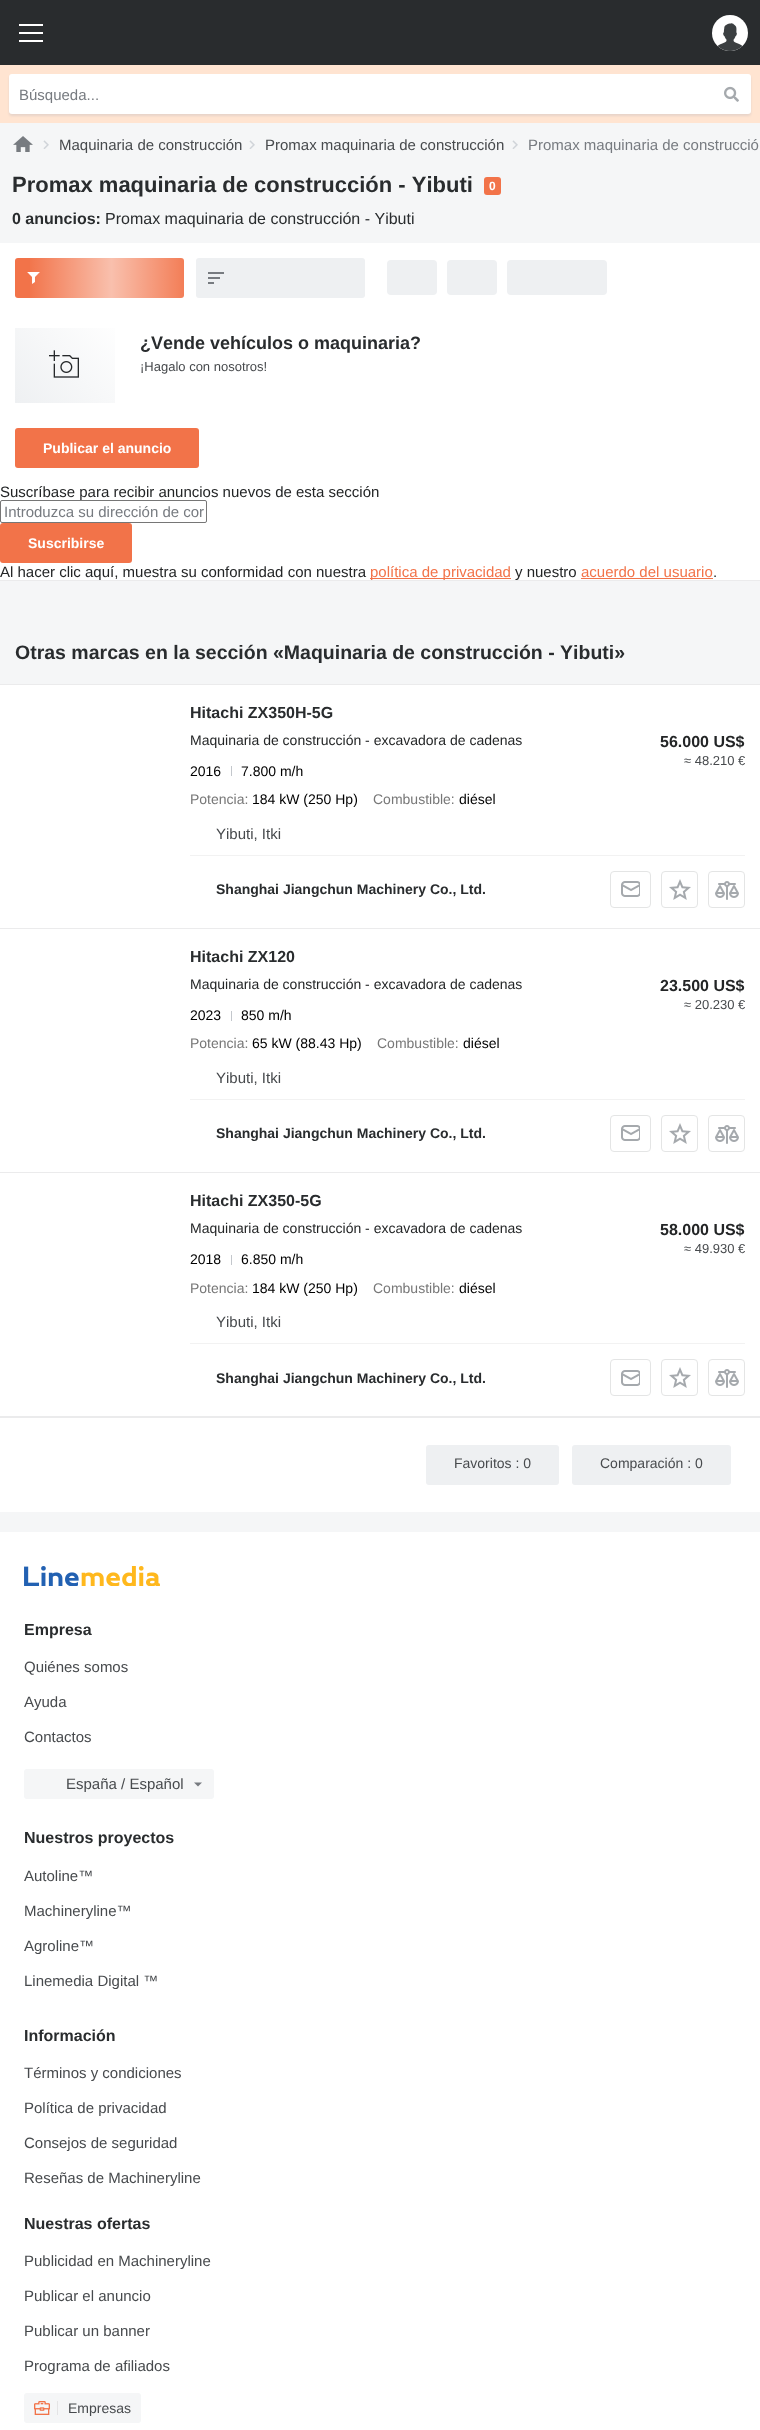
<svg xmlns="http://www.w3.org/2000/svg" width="760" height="2430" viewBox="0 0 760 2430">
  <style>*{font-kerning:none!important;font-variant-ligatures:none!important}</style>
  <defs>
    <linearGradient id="g1" gradientUnits="userSpaceOnUse" x1="27" y1="278" x2="196" y2="278"><stop offset="0" stop-color="#fff" stop-opacity="0"/><stop offset="0.5" stop-color="#fff" stop-opacity="0.55"/><stop offset="1" stop-color="#fff" stop-opacity="0"/></linearGradient>
    <linearGradient id="g2" gradientUnits="userSpaceOnUse" x1="19" y1="408" x2="117" y2="318"><stop offset="0" stop-color="#eef0f2"/><stop offset="1" stop-color="#fff"/></linearGradient>
  </defs>
  <rect width="100%" height="100%" fill="#f5f6f7"/>
  <path d="M0 0h760v65H0z" fill="#292c2e"/>
  <image x="19" y="24" width="24" height="18" href="img/1.png"/>
  <circle cx="730" cy="33" r="18" fill="#fff"/>
  <image x="717" y="23" width="26" height="28" href="img/2.png"/>
  <path d="M0 65h760v58H0z" fill="#ffe4d1"/>
  <rect x="9" y="76" width="742" height="40" rx="3" fill="#17518c1a" filter="blur(1px)"/>
  <rect x="9" y="74" width="742" height="40" rx="3" fill="#fff"/>
  <image x="724" y="86" width="15" height="16" href="img/3.png"/>
  <image x="13" y="136" width="20" height="16" href="img/4.png"/>
  <image x="43" y="140" width="6" height="9" href="img/5.png"/>
  <image x="249" y="140" width="6" height="9" href="img/5.png"/>
  <image x="512" y="140" width="6" height="9" href="img/5.png"/>
  <rect x="484" y="177" width="17" height="18" rx="3" fill="#f27349"/>
  <path d="M0 243h760v70H0z" fill="#fff"/>
  <rect x="15" y="258" width="169" height="40" rx="3" fill="#f27349"/>
  <image x="27" y="272" width="13" height="12" href="img/6.png"/>
  <rect x="196" y="258" width="169" height="40" rx="3" fill="#eef0f2"/>
  <path d="M30 258h154v40H30z" fill="url(#g1)"/>
  <image x="208" y="272" width="16" height="12" href="img/7.png"/>
  <rect x="387" y="260" width="50" height="35" rx="4" fill="#eef0f2"/>
  <rect x="447" y="260" width="50" height="35" rx="4" fill="#eef0f2"/>
  <rect x="507" y="260" width="100" height="35" rx="4" fill="#eef0f2"/>
  <path d="M0 313h760v1103H0z" fill="#fff"/>
  <path d="M15 328h100v75H15z" fill="url(#g2)"/>
  <image x="49" y="350" width="30" height="28" href="img/8.png"/>
  <rect x="15" y="428" width="184" height="40" rx="3" fill="#f27349"/>
  <rect y="523" width="132" height="40" rx="3" fill="#f27349"/>
  <path d="M370 578h141v1H370z" fill="#f27349"/>
  <path d="M581 578h132v1H581z" fill="#f27349"/>
  <path d="M0 580h760v1H0z" fill="#ebebec"/>
  <path d="M0 581h760v103H0z" fill="#f5f6f7"/>
  <path d="M0 684h760v1H0z" fill="#ebebec"/>
  <path d="M231 766h1v10H231z" fill="#c3c7cc"/>
  <path d="M190 855h555v1H190z" fill="#f2f2f2"/>
  <rect x="610.5" y="871.5" width="40" height="36" rx="3.5" fill="none" stroke="#e4e5e5"/>
  <image x="621" y="881" width="19" height="16" href="img/9.png"/>
  <rect x="661.5" y="871.5" width="36" height="36" rx="3.5" fill="none" stroke="#e4e5e5"/>
  <image x="669" y="879" width="22" height="21" href="img/10.png"/>
  <rect x="708.5" y="871.5" width="36" height="36" rx="3.5" fill="none" stroke="#e4e5e5"/>
  <image x="715" y="881" width="24" height="19" href="img/11.png"/>
  <path d="M0 928h760v1H0z" fill="#ebebec"/>
  <path d="M231 1011h1v10H231z" fill="#c3c7cc"/>
  <path d="M190 1099h555v1H190z" fill="#f2f2f2"/>
  <rect x="610.5" y="1115.5" width="40" height="36" rx="3.5" fill="none" stroke="#e4e5e5"/>
  <image x="621" y="1125" width="19" height="16" href="img/9.png"/>
  <rect x="661.5" y="1115.5" width="36" height="36" rx="3.5" fill="none" stroke="#e4e5e5"/>
  <image x="669" y="1123" width="22" height="21" href="img/10.png"/>
  <rect x="708.5" y="1115.5" width="36" height="36" rx="3.5" fill="none" stroke="#e4e5e5"/>
  <image x="715" y="1125" width="24" height="19" href="img/11.png"/>
  <path d="M0 1172h760v1H0z" fill="#ebebec"/>
  <path d="M231 1255h1v10H231z" fill="#c3c7cc"/>
  <path d="M190 1343h555v1H190z" fill="#f2f2f2"/>
  <rect x="610.5" y="1359.5" width="40" height="36" rx="3.5" fill="none" stroke="#e4e5e5"/>
  <image x="621" y="1370" width="19" height="16" href="img/9.png"/>
  <rect x="661.5" y="1359.5" width="36" height="36" rx="3.5" fill="none" stroke="#e4e5e5"/>
  <image x="669" y="1367" width="22" height="21" href="img/10.png"/>
  <rect x="708.5" y="1359.5" width="36" height="36" rx="3.5" fill="none" stroke="#e4e5e5"/>
  <image x="715" y="1369" width="24" height="19" href="img/11.png"/>
  <path d="M0 1416h760v2H0z" fill="#ebebec"/>
  <path d="M0 1418h760v94H0z" fill="#fff"/>
  <rect x="426" y="1445" width="133" height="40" rx="3" fill="#eef0f2"/>
  <rect x="572" y="1445" width="159" height="40" rx="3" fill="#eef0f2"/>
  <path d="M0 1532h760v898H0z" fill="#fff"/>
  <image x="24" y="1566" width="136" height="20" href="img/12.png"/>
  <rect x="24" y="1769" width="190" height="30" rx="3" fill="#f5f6f7"/>
  <path d="M194 1782.5H202L198 1786.5Z" fill="#777b80"/>
  <rect x="24" y="2393" width="117" height="30" rx="3" fill="#f5f6f7"/>
  <image x="34" y="2401" width="16" height="14" href="img/13.png"/>
  <path d="M57 2401h1v14H57z" fill="#e4e4e5"/>
  <text x="19" y="100" font-family="Liberation Sans" font-size="15" fill="#777b80">Búsqueda...</text>
  <g font-family="Liberation Sans" font-size="15" fill="#474a4d">
    <text x="59" y="150">Maquinaria de construcción</text>
    <text x="265" y="150">Promax maquinaria de construcción</text>
  </g>
  <text x="528" y="150" font-family="Liberation Sans" font-size="15" fill="#777b80">Promax maquinaria de construcció</text>
  <text x="12" y="192" font-family="Liberation Sans" font-size="22" font-weight="bold" fill="#292c2e">Promax maquinaria de construcción - Yibuti</text>
  <text x="489" y="190" font-family="Liberation Sans" font-size="12" font-weight="bold" fill="#fff">0</text>
  <text x="12" y="224" font-family="Liberation Sans" font-size="16" font-weight="bold" fill="#292c2e">0 anuncios:</text>
  <text x="105" y="224" font-family="Liberation Sans" font-size="16" fill="#292c2e">Promax maquinaria de construcción - Yibuti</text>
  <text x="140" y="349" font-family="Liberation Sans" font-size="18" font-weight="bold" fill="#292c2e">¿Vende vehículos o maquinaria?</text>
  <text x="140" y="371" font-family="Liberation Sans" font-size="13" fill="#474a4d">¡Hagalo con nosotros!</text>
  <text x="43" y="453" font-family="Liberation Sans" font-size="14" font-weight="bold" fill="#fff">Publicar el anuncio</text>
  <text x="0" y="497" font-family="Liberation Sans" font-size="15" fill="#232526">Suscríbase para recibir anuncios nuevos de esta sección</text>
  <rect x="0.5" y="500.5" width="206" height="22" rx="1.5" fill="#fff" stroke="#767676"/>
  <text x="4" y="517" font-family="Liberation Sans" font-size="15" fill="#777b80">Introduzca su dirección de cor</text>
  <text x="28" y="548" font-family="Liberation Sans" font-size="14" font-weight="bold" fill="#fff">Suscribirse</text>
  <text x="0" y="577" font-family="Liberation Sans" font-size="15" fill="#232526">Al hacer clic aquí, muestra su conformidad con nuestra</text>
  <text x="370" y="577" font-family="Liberation Sans" font-size="15" fill="#f27349">política de privacidad</text>
  <text x="515" y="577" font-family="Liberation Sans" font-size="15" fill="#232526">y nuestro</text>
  <text x="581" y="577" font-family="Liberation Sans" font-size="15" fill="#f27349">acuerdo del usuario</text>
  <text x="713" y="577" font-family="Liberation Sans" font-size="15" fill="#232526">.</text>
  <text x="15" y="659" font-family="Liberation Sans" font-size="19.5" font-weight="bold" fill="#292c2e">Otras marcas en la sección «Maquinaria de construcción - Yibuti»</text>
  <text x="190" y="718" font-family="Liberation Sans" font-size="16" font-weight="bold" fill="#292c2e">Hitachi ZX350H-5G</text>
  <text x="190" y="745" font-family="Liberation Sans" font-size="14" fill="#232526">Maquinaria de construcción - excavadora de cadenas</text>
  <g font-family="Liberation Sans" font-size="14" fill="#000">
    <text x="190" y="776">2016</text>
    <text x="241" y="776">7.800 m/h</text>
  </g>
  <text x="190" y="804" font-family="Liberation Sans" font-size="14" fill="#777">Potencia:</text>
  <text x="252" y="804" font-family="Liberation Sans" font-size="14" fill="#000">184 kW (250 Hp)</text>
  <text x="373" y="804" font-family="Liberation Sans" font-size="14" fill="#777">Combustible:</text>
  <text x="459" y="804" font-family="Liberation Sans" font-size="14" fill="#000">diésel</text>
  <text x="660" y="747" font-family="Liberation Sans" font-size="16" font-weight="bold" fill="#232526">56.000 US$</text>
  <text x="684" y="765" font-family="Liberation Sans" font-size="13" fill="#474a4d">≈ 48.210 €</text>
  <text x="216" y="839" font-family="Liberation Sans" font-size="15" fill="#474a4d">Yibuti, Itki</text>
  <text x="216" y="894" font-family="Liberation Sans" font-size="14" font-weight="bold" fill="#292c2e">Shanghai Jiangchun Machinery Co., Ltd.</text>
  <text x="190" y="962" font-family="Liberation Sans" font-size="16" font-weight="bold" fill="#292c2e">Hitachi ZX120</text>
  <text x="190" y="989" font-family="Liberation Sans" font-size="14" fill="#232526">Maquinaria de construcción - excavadora de cadenas</text>
  <g font-family="Liberation Sans" font-size="14" fill="#000">
    <text x="190" y="1020">2023</text>
    <text x="241" y="1020">850 m/h</text>
  </g>
  <text x="190" y="1048" font-family="Liberation Sans" font-size="14" fill="#777">Potencia:</text>
  <text x="252" y="1048" font-family="Liberation Sans" font-size="14" fill="#000">65 kW (88.43 Hp)</text>
  <text x="377" y="1048" font-family="Liberation Sans" font-size="14" fill="#777">Combustible:</text>
  <text x="463" y="1048" font-family="Liberation Sans" font-size="14" fill="#000">diésel</text>
  <text x="660" y="991" font-family="Liberation Sans" font-size="16" font-weight="bold" fill="#232526">23.500 US$</text>
  <text x="684" y="1009" font-family="Liberation Sans" font-size="13" fill="#474a4d">≈ 20.230 €</text>
  <text x="216" y="1083" font-family="Liberation Sans" font-size="15" fill="#474a4d">Yibuti, Itki</text>
  <text x="216" y="1138" font-family="Liberation Sans" font-size="14" font-weight="bold" fill="#292c2e">Shanghai Jiangchun Machinery Co., Ltd.</text>
  <text x="190" y="1206" font-family="Liberation Sans" font-size="16" font-weight="bold" fill="#292c2e">Hitachi ZX350-5G</text>
  <text x="190" y="1233" font-family="Liberation Sans" font-size="14" fill="#232526">Maquinaria de construcción - excavadora de cadenas</text>
  <g font-family="Liberation Sans" font-size="14" fill="#000">
    <text x="190" y="1264">2018</text>
    <text x="241" y="1264">6.850 m/h</text>
  </g>
  <text x="190" y="1293" font-family="Liberation Sans" font-size="14" fill="#777">Potencia:</text>
  <text x="252" y="1293" font-family="Liberation Sans" font-size="14" fill="#000">184 kW (250 Hp)</text>
  <text x="373" y="1293" font-family="Liberation Sans" font-size="14" fill="#777">Combustible:</text>
  <text x="459" y="1293" font-family="Liberation Sans" font-size="14" fill="#000">diésel</text>
  <text x="660" y="1235" font-family="Liberation Sans" font-size="16" font-weight="bold" fill="#232526">58.000 US$</text>
  <text x="684" y="1253" font-family="Liberation Sans" font-size="13" fill="#474a4d">≈ 49.930 €</text>
  <text x="216" y="1327" font-family="Liberation Sans" font-size="15" fill="#474a4d">Yibuti, Itki</text>
  <text x="216" y="1383" font-family="Liberation Sans" font-size="14" font-weight="bold" fill="#292c2e">Shanghai Jiangchun Machinery Co., Ltd.</text>
  <g font-family="Liberation Sans" font-size="14" fill="#474a4d">
    <text x="454" y="1468">Favoritos : 0</text>
    <text x="600" y="1468">Comparación : 0</text>
  </g>
  <text x="24" y="1635" font-family="Liberation Sans" font-size="16" font-weight="bold" fill="#292c2e">Empresa</text>
  <g font-family="Liberation Sans" font-size="15" fill="#474a4d">
    <text x="24" y="1672">Quiénes somos</text>
    <text x="24" y="1707">Ayuda</text>
    <text x="24" y="1742">Contactos</text>
    <text x="66" y="1789">España / Español</text>
  </g>
  <text x="24" y="1843" font-family="Liberation Sans" font-size="16" font-weight="bold" fill="#292c2e">Nuestros proyectos</text>
  <g font-family="Liberation Sans" font-size="15" fill="#474a4d">
    <text x="24" y="1881">Autoline™</text>
    <text x="24" y="1916">Machineryline™</text>
    <text x="24" y="1951">Agroline™</text>
    <text x="24" y="1986">Linemedia Digital ™</text>
  </g>
  <text x="24" y="2041" font-family="Liberation Sans" font-size="16" font-weight="bold" fill="#292c2e">Información</text>
  <g font-family="Liberation Sans" font-size="15" fill="#474a4d">
    <text x="24" y="2078">Términos y condiciones</text>
    <text x="24" y="2113">Política de privacidad</text>
    <text x="24" y="2148">Consejos de seguridad</text>
    <text x="24" y="2183">Reseñas de Machineryline</text>
  </g>
  <text x="24" y="2229" font-family="Liberation Sans" font-size="16" font-weight="bold" fill="#292c2e">Nuestras ofertas</text>
  <g font-family="Liberation Sans" font-size="15" fill="#474a4d">
    <text x="24" y="2266">Publicidad en Machineryline</text>
    <text x="24" y="2301">Publicar el anuncio</text>
    <text x="24" y="2336">Publicar un banner</text>
    <text x="24" y="2371">Programa de afiliados</text>
  </g>
  <text x="68" y="2413" font-family="Liberation Sans" font-size="14" fill="#474a4d">Empresas</text>
</svg>
